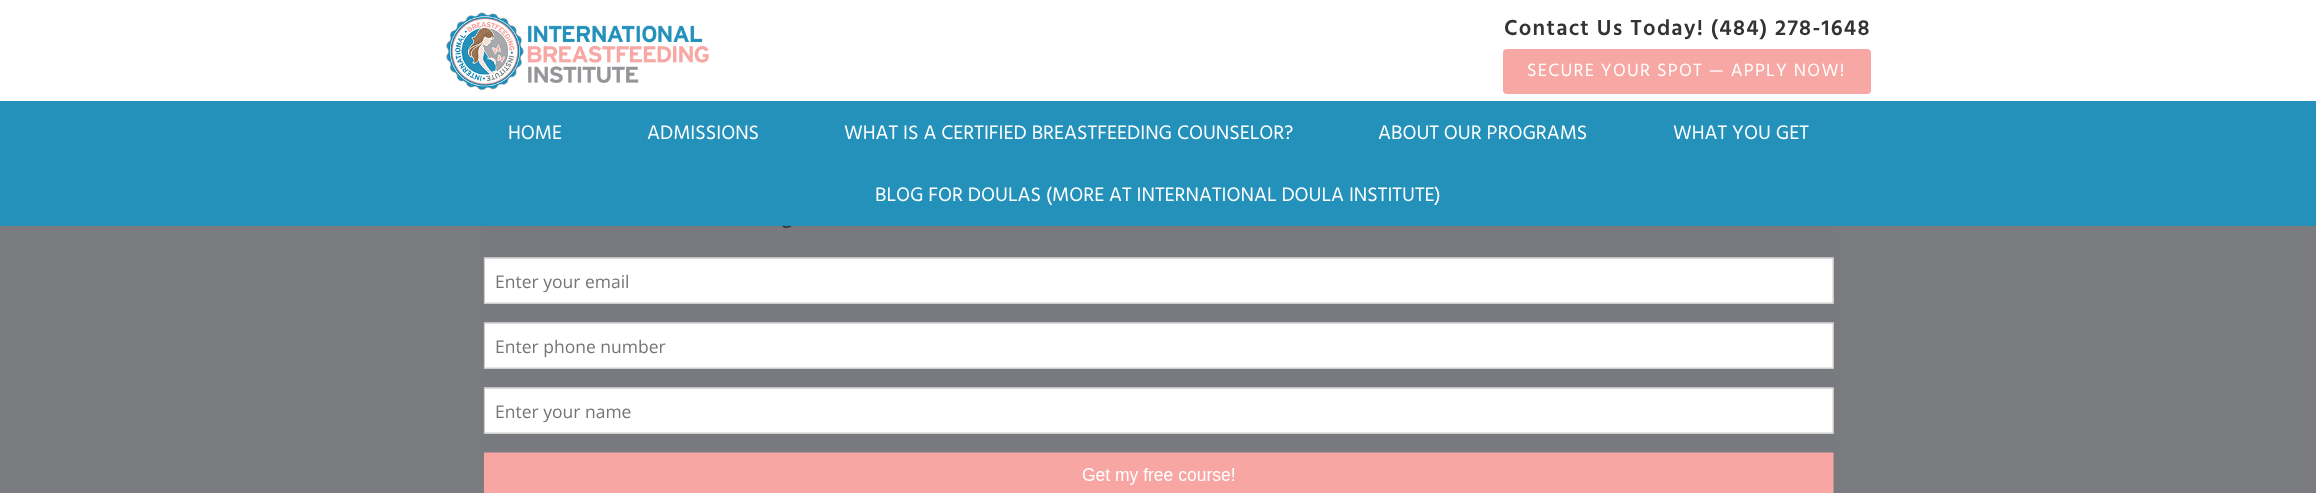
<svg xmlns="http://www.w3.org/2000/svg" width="2316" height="493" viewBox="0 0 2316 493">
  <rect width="100%" height="100%" fill="#fff"/>
  <image x="446" y="12" width="263" height="78" href="img/1.png"/>
  <rect x="1503" y="49" width="368" height="45" rx="4" fill="#f7a7a4"/>
  <path d="M0 101h2316v125H0z" fill="#2491bb"/>
  <path d="M0 226h2316v267H0z" fill="#7a7b7f"/>
  <image x="483" y="226" width="1351" height="267" href="img/2.png"/>
  <text x="1504" y="35" font-family="Hind" font-size="22.25" font-weight="600" letter-spacing="1.25" fill="#333">Contact Us Today! (484) 278-1648</text>
  <text x="1527" y="76" font-family="Hind" font-size="18.25" letter-spacing="1.25" fill="#fff">SECURE YOUR SPOT — APPLY NOW!</text>
  <g font-family="Hind" font-size="20" fill="#fff">
    <text x="508" y="139">HOME</text>
    <text x="647" y="139">ADMISSIONS</text>
    <text x="844" y="139">WHAT IS A CERTIFIED BREASTFEEDING COUNSELOR?</text>
    <text x="1378" y="139">ABOUT OUR PROGRAMS</text>
    <text x="1673" y="139">WHAT YOU GET</text>
    <text x="875" y="201">BLOG FOR DOULAS (MORE AT INTERNATIONAL DOULA INSTITUTE)</text>
  </g>
</svg>
